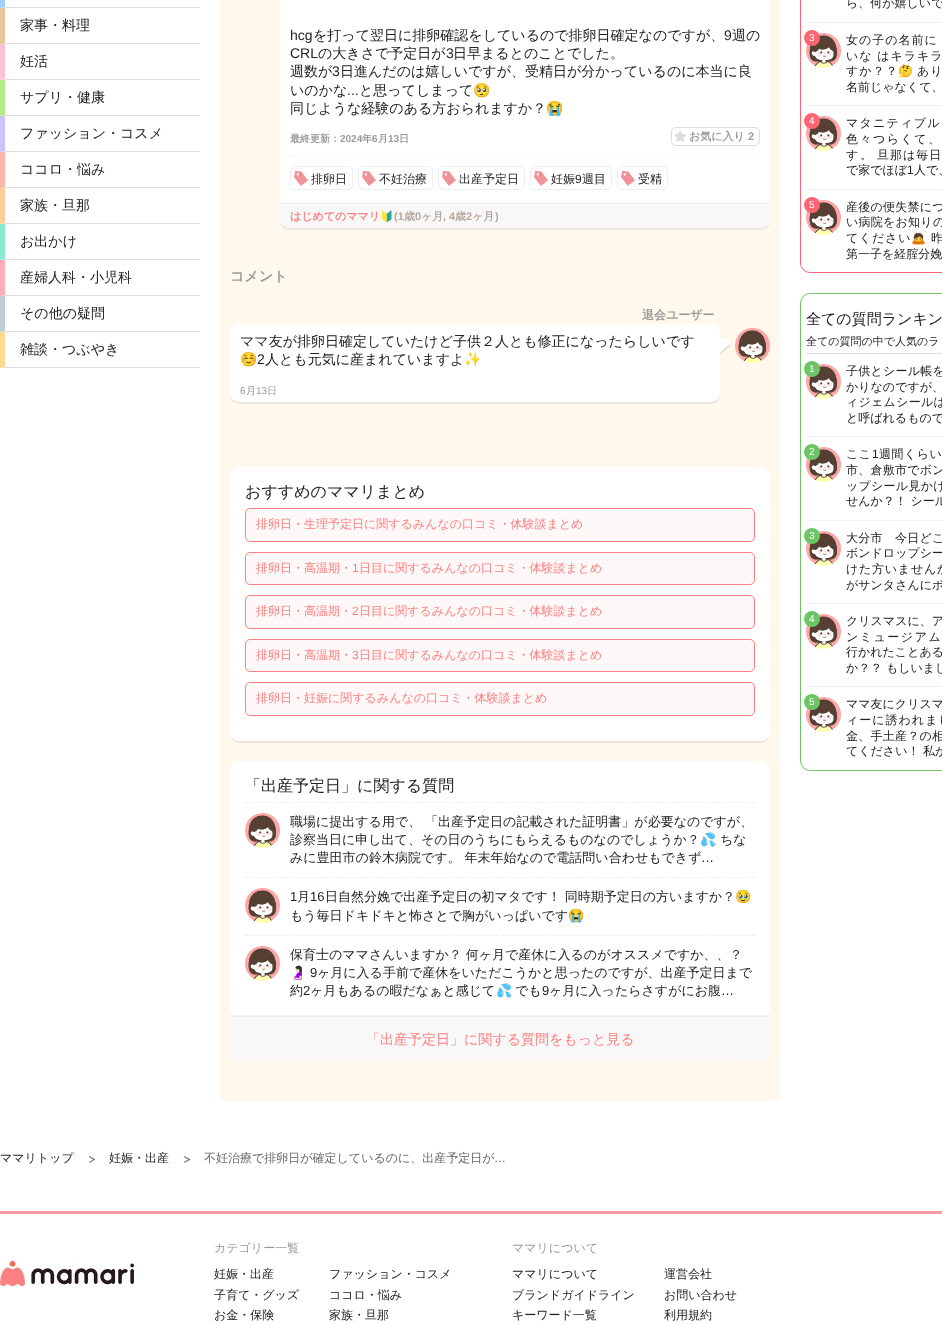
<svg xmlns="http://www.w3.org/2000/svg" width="942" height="1324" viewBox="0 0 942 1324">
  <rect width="100%" height="100%" fill="#fff"/>
  <path d="M200 8H0L5 7H200Z" fill="#ddd"/>
  <path d="M0 8V-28H5V7Z" fill="#9bd0ff"/>
  <path d="M200 44H0L5 43H200Z" fill="#ddd"/>
  <path d="M0 44V8H5V43Z" fill="#e8c59b"/>
  <path d="M200 80H0L5 79H200Z" fill="#ddd"/>
  <path d="M0 80V44H5V79Z" fill="#ffc1d4"/>
  <path d="M200 116H0L5 115H200Z" fill="#ddd"/>
  <path d="M0 116V80H5V115Z" fill="#b0eb88"/>
  <path d="M200 152H0L5 151H200Z" fill="#ddd"/>
  <path d="M0 152V116H5V151Z" fill="#ccc2ff"/>
  <path d="M200 188H0L5 187H200Z" fill="#ddd"/>
  <path d="M0 188V152H5V187Z" fill="#ffb6aa"/>
  <path d="M200 224H0L5 223H200Z" fill="#ddd"/>
  <path d="M0 224V188H5V223Z" fill="#ffcd9a"/>
  <path d="M200 260H0L5 259H200Z" fill="#ddd"/>
  <path d="M0 260V224H5V259Z" fill="#8ceacc"/>
  <path d="M200 296H0L5 295H200Z" fill="#ddd"/>
  <path d="M0 296V260H5V295Z" fill="#ffaeb7"/>
  <path d="M200 332H0L5 331H200Z" fill="#ddd"/>
  <path d="M0 332V296H5V331Z" fill="#c2cdd2"/>
  <path d="M200 368H0L5 367H200Z" fill="#ddd"/>
  <path d="M0 368V332H5V367Z" fill="#ffda8e"/>
  <path d="M220 0h560v1101H220z" fill="#fff8ed"/>
  <path d="M280 218V220C280 226 284 230 290 230H760C766 230 770 226 770 220V218C770 224 766 228 760 228H290C284 228 280 224 280 218Z" fill="#ece6dc"/>
  <rect x="280" y="-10" width="490" height="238" rx="10" fill="#fff"/>
  <image x="674" y="130" width="12" height="12" href="img/1.png"/>
  <rect x="671.5" y="127.5" width="88" height="18" rx="4.5" fill="none" stroke="#ddd"/>
  <path d="M290 155.5H760" fill="none" stroke="#eee" stroke-dasharray="1 1"/>
  <image x="294" y="171" width="14" height="15" href="img/2.png"/>
  <rect x="290.5" y="166.5" width="62" height="23" rx="4.5" fill="none" stroke="#eee"/>
  <image x="362" y="171" width="14" height="15" href="img/2.png"/>
  <rect x="358.5" y="166.5" width="74" height="23" rx="4.5" fill="none" stroke="#eee"/>
  <image x="442" y="171" width="14" height="15" href="img/2.png"/>
  <rect x="438.5" y="166.5" width="86" height="23" rx="4.5" fill="none" stroke="#eee"/>
  <image x="534" y="171" width="14" height="15" href="img/2.png"/>
  <rect x="530.5" y="166.5" width="81" height="23" rx="4.5" fill="none" stroke="#eee"/>
  <image x="621" y="171" width="14" height="15" href="img/3.png"/>
  <rect x="617.5" y="166.5" width="50" height="23" rx="4.5" fill="none" stroke="#eee"/>
  <path d="M280 203H770V218C770 223.5 765.5 228 760 228H290C284.5 228 280 223.5 280 218Z" fill="#f8f8f8"/>
  <path d="M280 203h490v1H280z" fill="#eee"/>
  <path d="M230 392V394C230 400 234 404 240 404H710C716 404 720 400 720 394V392C720 398 716 402 710 402H240C234 402 230 398 230 392Z" fill="#ece6dc"/>
  <rect x="230" y="324" width="490" height="78" rx="10" fill="#fff"/>
  <image x="720" y="339" width="10" height="16" href="img/4.png"/>
  <image x="735" y="328" width="35" height="35" href="img/5.png"/>
  <path d="M230 731C230 737 233 743 240 743H760C767 743 770 737 770 731C770 737 766 741 760 741H240C234 741 230 737 230 731Z" fill="#ece6dc"/>
  <rect x="230" y="467" width="540" height="274" rx="10" fill="#fff"/>
  <rect x="245.5" y="508.5" width="509" height="33" rx="4.5" fill="#fef8f8" stroke="#ff8080"/>
  <rect x="245.5" y="552.5" width="509" height="32" rx="4.5" fill="#fef8f8" stroke="#ff8080"/>
  <rect x="245.5" y="595.5" width="509" height="33" rx="4.5" fill="#fef8f8" stroke="#ff8080"/>
  <rect x="245.5" y="639.5" width="509" height="32" rx="4.5" fill="#fef8f8" stroke="#ff8080"/>
  <rect x="245.5" y="682.5" width="509" height="33" rx="4.5" fill="#fef8f8" stroke="#ff8080"/>
  <path d="M240 761H760C765.5 761 770 765.5 770 771V1015H230V771C230 765.5 234.5 761 240 761Z" fill="#fff"/>
  <path d="M245 802.5H755" fill="none" stroke="#eee" stroke-dasharray="3 2.02"/>
  <path d="M245 877.5H755" fill="none" stroke="#eee" stroke-dasharray="3 2.02"/>
  <image x="245" y="813" width="35" height="35" href="img/6.png"/>
  <path d="M245 935.5H755" fill="none" stroke="#eee" stroke-dasharray="3 2.02"/>
  <image x="245" y="888" width="35" height="35" href="img/6.png"/>
  <image x="245" y="946" width="35" height="35" href="img/7.png"/>
  <path d="M230 1015H770V1051C770 1056.5 765.5 1061 760 1061H240C234.5 1061 230 1056.5 230 1051Z" fill="#f8f8f8"/>
  <path d="M230 1015h540v2H230z" fill="#eee"/>
  <rect x="800.5" y="-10.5" width="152" height="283" rx="9.5" fill="none" stroke="#fc6572"/>
  <path d="M806 22h136v1H806z" fill="#eee"/>
  <path d="M806 105h136v1H806z" fill="#eee"/>
  <image x="806" y="33" width="35" height="35" href="img/6.png"/>
  <circle cx="812" cy="38" r="8" fill="#fc6572"/>
  <path d="M806 189h136v1H806z" fill="#eee"/>
  <image x="806" y="116" width="35" height="35" href="img/8.png"/>
  <circle cx="812" cy="121" r="8" fill="#fc6572"/>
  <image x="806" y="200" width="35" height="35" href="img/6.png"/>
  <circle cx="812" cy="205" r="8" fill="#fc6572"/>
  <rect x="800.5" y="293.5" width="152" height="477" rx="9.5" fill="none" stroke="#6dc565"/>
  <path d="M806 353h136v1H806z" fill="#ddd"/>
  <path d="M806 436h136v1H806z" fill="#eee"/>
  <image x="806" y="364" width="35" height="35" href="img/8.png"/>
  <circle cx="812" cy="369" r="8" fill="#6dc565"/>
  <path d="M806 520h136v1H806z" fill="#eee"/>
  <image x="806" y="447" width="35" height="35" href="img/6.png"/>
  <circle cx="812" cy="452" r="8" fill="#6dc565"/>
  <path d="M806 603h136v1H806z" fill="#eee"/>
  <image x="806" y="531" width="35" height="35" href="img/6.png"/>
  <circle cx="812" cy="536" r="8" fill="#6dc565"/>
  <path d="M806 686h136v1H806z" fill="#eee"/>
  <image x="806" y="614" width="35" height="35" href="img/6.png"/>
  <circle cx="812" cy="619" r="8" fill="#6dc565"/>
  <image x="806" y="697" width="35" height="35" href="img/6.png"/>
  <circle cx="812" cy="702" r="8" fill="#6dc565"/>
  <image x="89" y="1156" width="6" height="7" href="img/9.png"/>
  <image x="184" y="1156" width="6" height="7" href="img/9.png"/>
  <path d="M0 1211h942v3H0z" fill="#ff9aa0"/>
  <image x="0" y="1261" width="134" height="25" href="img/10.png"/>
  <g font-family="WenQuanYi Zen Hei" font-size="14" font-weight="500" fill="#222">
    <text x="20" y="30">家事・料理</text>
    <text x="20" y="66">妊活</text>
    <text x="20" y="102">サプリ・健康</text>
    <text x="20" y="138">ファッション・コスメ</text>
    <text x="20" y="174">ココロ・悩み</text>
    <text x="20" y="210">家族・旦那</text>
    <text x="20" y="246">お出かけ</text>
    <text x="20" y="282">産婦人科・小児科</text>
    <text x="20" y="318">その他の疑問</text>
    <text x="20" y="354">雑談・つぶやき</text>
  </g>
  <text x="290" y="40" font-family="Liberation Sans" font-size="14" fill="#222">hcg</text>
  <text x="313" y="40" font-family="WenQuanYi Zen Hei" font-size="14" font-weight="500" fill="#222">を打って翌日に排卵確認をしているので排卵日確定なのですが、</text>
  <text x="724" y="40" font-family="Liberation Sans" font-size="14" fill="#222">9</text>
  <text x="732" y="40" font-family="WenQuanYi Zen Hei" font-size="14" font-weight="500" fill="#222">週の</text>
  <text x="290" y="58" font-family="Liberation Sans" font-size="14" fill="#222">CRL</text>
  <text x="318" y="58" font-family="WenQuanYi Zen Hei" font-size="14" font-weight="500" fill="#222">の大きさで予定日が</text>
  <text x="446" y="58" font-family="Liberation Sans" font-size="14" fill="#222">3</text>
  <g font-family="WenQuanYi Zen Hei" font-size="14" font-weight="500" fill="#222">
    <text x="453" y="58">日早まるとのことでした。</text>
    <text x="290" y="76">週数が</text>
  </g>
  <text x="332" y="76" font-family="Liberation Sans" font-size="14" fill="#222">3</text>
  <g font-family="WenQuanYi Zen Hei" font-size="14" font-weight="500" fill="#222">
    <text x="340" y="76">日進んだのは嬉しいですが、受精日が分かっているのに本当に良</text>
    <text x="290" y="95">いのかな</text>
  </g>
  <text x="347" y="95" font-family="Liberation Sans" font-size="14" fill="#222">...</text>
  <text x="359" y="95" font-family="WenQuanYi Zen Hei" font-size="14" font-weight="500" fill="#222">と思ってしまって</text>
  <text x="473" y="95" font-family="Noto Color Emoji" font-size="14" fill="#222">🥺</text>
  <text x="290" y="113" font-family="WenQuanYi Zen Hei" font-size="14" font-weight="500" fill="#222">同じような経験のある方おられますか？</text>
  <text x="546" y="113" font-family="Noto Color Emoji" font-size="14" fill="#222">😭</text>
  <text x="290" y="142" font-family="WenQuanYi Zen Hei" font-size="10" font-weight="bold" fill="#999">最終更新：</text>
  <text x="340" y="142" font-family="Liberation Sans" font-size="10" font-weight="bold" fill="#999">2024</text>
  <text x="362" y="142" font-family="WenQuanYi Zen Hei" font-size="10" font-weight="bold" fill="#999">年</text>
  <text x="372" y="142" font-family="Liberation Sans" font-size="10" font-weight="bold" fill="#999">6</text>
  <text x="378" y="142" font-family="WenQuanYi Zen Hei" font-size="10" font-weight="bold" fill="#999">月</text>
  <text x="388" y="142" font-family="Liberation Sans" font-size="10" font-weight="bold" fill="#999">13</text>
  <text x="399" y="142" font-family="WenQuanYi Zen Hei" font-size="10" font-weight="bold" fill="#999">日</text>
  <text x="689" y="140" font-family="WenQuanYi Zen Hei" font-size="11" font-weight="bold" fill="#999">お気に入り</text>
  <text x="748" y="140" font-family="Liberation Sans" font-size="11" font-weight="bold" fill="#999">2</text>
  <g font-family="WenQuanYi Zen Hei" font-size="12" font-weight="500" fill="#222">
    <text x="311" y="183">排卵日</text>
    <text x="379" y="183">不妊治療</text>
    <text x="459" y="183">出産予定日</text>
    <text x="551" y="183">妊娠</text>
  </g>
  <text x="575" y="183" font-family="Liberation Sans" font-size="12" fill="#222">9</text>
  <g font-family="WenQuanYi Zen Hei" font-size="12" font-weight="500" fill="#222">
    <text x="582" y="183">週目</text>
    <text x="638" y="183">受精</text>
  </g>
  <text x="290" y="220" font-family="WenQuanYi Zen Hei" font-size="11" font-weight="bold" fill="#ff8080">はじめてのママリ</text>
  <text x="380" y="220" font-family="Noto Color Emoji" font-size="11" font-weight="bold" fill="#ff8080">🔰</text>
  <text x="394" y="220" font-family="Liberation Sans" font-size="11" font-weight="bold" fill="#b5a89f">(1</text>
  <text x="404" y="220" font-family="WenQuanYi Zen Hei" font-size="11" font-weight="bold" fill="#b5a89f">歳</text>
  <text x="415" y="220" font-family="Liberation Sans" font-size="11" font-weight="bold" fill="#b5a89f">0</text>
  <text x="421" y="220" font-family="WenQuanYi Zen Hei" font-size="11" font-weight="bold" fill="#b5a89f">ヶ月</text>
  <text x="443" y="220" font-family="Liberation Sans" font-size="11" font-weight="bold" fill="#b5a89f">, 4</text>
  <text x="455" y="220" font-family="WenQuanYi Zen Hei" font-size="11" font-weight="bold" fill="#b5a89f">歳</text>
  <text x="466" y="220" font-family="Liberation Sans" font-size="11" font-weight="bold" fill="#b5a89f">2</text>
  <text x="472" y="220" font-family="WenQuanYi Zen Hei" font-size="11" font-weight="bold" fill="#b5a89f">ヶ月</text>
  <text x="495" y="220" font-family="Liberation Sans" font-size="11" font-weight="bold" fill="#b5a89f">)</text>
  <text x="230" y="281" font-family="WenQuanYi Zen Hei" font-size="14" font-weight="bold" fill="#999">コメント</text>
  <text x="642" y="319" font-family="WenQuanYi Zen Hei" font-size="12" font-weight="bold" fill="#999">退会ユーザー</text>
  <text x="240" y="346" font-family="WenQuanYi Zen Hei" font-size="14" font-weight="500" fill="#222">ママ友が排卵日確定していたけど子供２人とも修正になったらしいです</text>
  <text x="240" y="364" font-family="Noto Color Emoji" font-size="14" fill="#222">☺️</text>
  <text x="257" y="364" font-family="Liberation Sans" font-size="14" fill="#222">2</text>
  <text x="265" y="364" font-family="WenQuanYi Zen Hei" font-size="14" font-weight="500" fill="#222">人とも元気に産まれていますよ</text>
  <text x="464" y="364" font-family="Noto Color Emoji" font-size="14" fill="#222">✨</text>
  <text x="240" y="394" font-family="Liberation Sans" font-size="10" fill="#999">6</text>
  <text x="246" y="394" font-family="WenQuanYi Zen Hei" font-size="10" font-weight="500" fill="#999">月</text>
  <text x="256" y="394" font-family="Liberation Sans" font-size="10" fill="#999">13</text>
  <text x="267" y="394" font-family="WenQuanYi Zen Hei" font-size="10" font-weight="500" fill="#999">日</text>
  <text x="245" y="497" font-family="WenQuanYi Zen Hei" font-size="16" font-weight="500" fill="#222">おすすめのママリまとめ</text>
  <g font-family="WenQuanYi Zen Hei" font-size="12" font-weight="500" fill="#ff8080">
    <text x="256" y="528">排卵日・生理予定日に関するみんなの口コミ・体験談まとめ</text>
    <text x="256" y="572">排卵日・高温期・</text>
  </g>
  <text x="352" y="572" font-family="Liberation Sans" font-size="12" fill="#ff8080">1</text>
  <g font-family="WenQuanYi Zen Hei" font-size="12" font-weight="500" fill="#ff8080">
    <text x="359" y="572">日目に関するみんなの口コミ・体験談まとめ</text>
    <text x="256" y="615">排卵日・高温期・</text>
  </g>
  <text x="352" y="615" font-family="Liberation Sans" font-size="12" fill="#ff8080">2</text>
  <g font-family="WenQuanYi Zen Hei" font-size="12" font-weight="500" fill="#ff8080">
    <text x="359" y="615">日目に関するみんなの口コミ・体験談まとめ</text>
    <text x="256" y="659">排卵日・高温期・</text>
  </g>
  <text x="352" y="659" font-family="Liberation Sans" font-size="12" fill="#ff8080">3</text>
  <g font-family="WenQuanYi Zen Hei" font-size="12" font-weight="500" fill="#ff8080">
    <text x="359" y="659">日目に関するみんなの口コミ・体験談まとめ</text>
    <text x="256" y="702">排卵日・妊娠に関するみんなの口コミ・体験談まとめ</text>
  </g>
  <text x="245" y="791" font-family="WenQuanYi Zen Hei" font-size="16" font-weight="500" fill="#222">「出産予定日」に関する質問</text>
  <g font-family="WenQuanYi Zen Hei" font-size="13" font-weight="500" fill="#222">
    <text x="290" y="826">職場に提出する用で、 「出産予定日の記載された証明書」が必要なのですが、</text>
    <text x="290" y="844">診察当日に申し出て、その日のうちにもらえるものなのでしょうか？</text>
  </g>
  <text x="700" y="844" font-family="Noto Color Emoji" font-size="13" fill="#222">💦</text>
  <g font-family="WenQuanYi Zen Hei" font-size="13" font-weight="500" fill="#222">
    <text x="720" y="844">ちな</text>
    <text x="290" y="862">みに豊田市の鈴木病院です。 年末年始なので電話問い合わせもできず</text>
  </g>
  <g font-family="Liberation Sans" font-size="13" fill="#222">
    <text x="701" y="862">…</text>
    <text x="290" y="901">1</text>
  </g>
  <text x="297" y="901" font-family="WenQuanYi Zen Hei" font-size="13" font-weight="500" fill="#222">月</text>
  <text x="310" y="901" font-family="Liberation Sans" font-size="13" fill="#222">16</text>
  <text x="325" y="901" font-family="WenQuanYi Zen Hei" font-size="13" font-weight="500" fill="#222">日自然分娩で出産予定日の初マタです！ 同時期予定日の方いますか？</text>
  <text x="735" y="901" font-family="Noto Color Emoji" font-size="13" fill="#222">🥹</text>
  <text x="290" y="920" font-family="WenQuanYi Zen Hei" font-size="13" font-weight="500" fill="#222">もう毎日ドキドキと怖さとで胸がいっぱいです</text>
  <text x="568" y="920" font-family="Noto Color Emoji" font-size="13" fill="#222">😭</text>
  <text x="290" y="959" font-family="WenQuanYi Zen Hei" font-size="13" font-weight="500" fill="#222">保育士のママさんいますか？ 何ヶ月で産休に入るのがオススメですか、、？</text>
  <text x="290" y="977" font-family="Noto Color Emoji" font-size="13" fill="#222">🤰🏻</text>
  <text x="310" y="977" font-family="Liberation Sans" font-size="13" fill="#222">9</text>
  <g font-family="WenQuanYi Zen Hei" font-size="13" font-weight="500" fill="#222">
    <text x="317" y="977">ヶ月に入る手前で産休をいただこうかと思ったのですが、出産予定日まで</text>
    <text x="290" y="995">約</text>
  </g>
  <text x="303" y="995" font-family="Liberation Sans" font-size="13" fill="#222">2</text>
  <text x="310" y="995" font-family="WenQuanYi Zen Hei" font-size="13" font-weight="500" fill="#222">ヶ月もあるの暇だなぁと感じて</text>
  <text x="496" y="995" font-family="Noto Color Emoji" font-size="13" fill="#222">💦</text>
  <text x="515" y="995" font-family="WenQuanYi Zen Hei" font-size="13" font-weight="500" fill="#222">でも</text>
  <text x="542" y="995" font-family="Liberation Sans" font-size="13" fill="#222">9</text>
  <text x="549" y="995" font-family="WenQuanYi Zen Hei" font-size="13" font-weight="500" fill="#222">ヶ月に入ったらさすがにお腹</text>
  <text x="721" y="995" font-family="Liberation Sans" font-size="13" fill="#222">…</text>
  <text x="366" y="1044" font-family="WenQuanYi Zen Hei" font-size="14" font-weight="500" fill="#ff8080">「出産予定日」に関する質問をもっと見る</text>
  <text x="846" y="7" font-family="WenQuanYi Zen Hei" font-size="12" font-weight="500" fill="#222">ら、何が嬉しいで</text>
  <text x="809" y="41" font-family="Liberation Sans" font-size="10" fill="#fff">3</text>
  <g font-family="WenQuanYi Zen Hei" font-size="12" font-weight="500" letter-spacing="1" fill="#222">
    <text x="846" y="44">女の子の名前に</text>
    <text x="846" y="60">いな はキラキラ</text>
    <text x="846" y="75">すか？？</text>
  </g>
  <text x="898" y="75" font-family="Noto Color Emoji" font-size="12" letter-spacing="1" fill="#222">🤔</text>
  <text x="917" y="75" font-family="WenQuanYi Zen Hei" font-size="12" font-weight="500" letter-spacing="1" fill="#222">あり</text>
  <text x="846" y="91" font-family="WenQuanYi Zen Hei" font-size="12" font-weight="500" fill="#222">名前じゃなくて、</text>
  <text x="809" y="124" font-family="Liberation Sans" font-size="10" fill="#fff">4</text>
  <text x="846" y="127" font-family="WenQuanYi Zen Hei" font-size="12" font-weight="500" letter-spacing="1.25" fill="#222">マタニティブル</text>
  <text x="846" y="143" font-family="WenQuanYi Zen Hei" font-size="12" font-weight="500" letter-spacing="1.5" fill="#222">色々つらくて、</text>
  <text x="846" y="159" font-family="WenQuanYi Zen Hei" font-size="12" font-weight="500" letter-spacing="2" fill="#222">す。</text>
  <text x="877" y="159" font-family="WenQuanYi Zen Hei" font-size="12" font-weight="500" letter-spacing="1" fill="#222">旦那は毎日</text>
  <text x="846" y="174" font-family="WenQuanYi Zen Hei" font-size="12" font-weight="500" fill="#222">で家でほぼ</text>
  <text x="907" y="174" font-family="Liberation Sans" font-size="12" fill="#222">1</text>
  <text x="914" y="174" font-family="WenQuanYi Zen Hei" font-size="12" font-weight="500" fill="#222">人で、</text>
  <g font-family="WenQuanYi Zen Hei" font-size="12" font-weight="500" letter-spacing="0.25" fill="#222">
    <text x="846" y="211">産後の便失禁につ</text>
    <text x="846" y="226">い病院をお知りの</text>
  </g>
  <text x="846" y="242" font-family="WenQuanYi Zen Hei" font-size="12" font-weight="500" letter-spacing="0.75" fill="#222">てください</text>
  <text x="911" y="242" font-family="Noto Color Emoji" font-size="12" letter-spacing="0.75" fill="#222">🙇</text>
  <text x="931" y="242" font-family="WenQuanYi Zen Hei" font-size="12" font-weight="500" letter-spacing="0.75" fill="#222">昨</text>
  <text x="846" y="258" font-family="WenQuanYi Zen Hei" font-size="12" font-weight="500" fill="#222">第一子を経腟分娩</text>
  <text x="809" y="208" font-family="Liberation Sans" font-size="10" fill="#fff">5</text>
  <text x="806" y="324" font-family="WenQuanYi Zen Hei" font-size="15" font-weight="500" fill="#222">全ての質問ランキン</text>
  <text x="806" y="345" font-family="WenQuanYi Zen Hei" font-size="11" font-weight="500" fill="#222">全ての質問の中で人気のラ</text>
  <text x="809" y="372" font-family="Liberation Sans" font-size="10" fill="#fff">1</text>
  <text x="846" y="375" font-family="WenQuanYi Zen Hei" font-size="12" font-weight="500" letter-spacing="0.25" fill="#222">子供とシール帳を</text>
  <text x="846" y="391" font-family="WenQuanYi Zen Hei" font-size="12" font-weight="500" fill="#222">かりなのですが、</text>
  <text x="846" y="406" font-family="WenQuanYi Zen Hei" font-size="12" font-weight="500" letter-spacing="0.25" fill="#222">ィジェムシールは</text>
  <text x="846" y="422" font-family="WenQuanYi Zen Hei" font-size="12" font-weight="500" fill="#222">と呼ばれるもので</text>
  <text x="809" y="455" font-family="Liberation Sans" font-size="10" fill="#fff">2</text>
  <text x="846" y="458" font-family="WenQuanYi Zen Hei" font-size="12" font-weight="500" letter-spacing="0.5" fill="#222">ここ</text>
  <text x="872" y="458" font-family="Liberation Sans" font-size="12" letter-spacing="0.5" fill="#222">1</text>
  <text x="879" y="458" font-family="WenQuanYi Zen Hei" font-size="12" font-weight="500" letter-spacing="0.5" fill="#222">週間くらい</text>
  <g font-family="WenQuanYi Zen Hei" font-size="12" font-weight="500" letter-spacing="0.25" fill="#222">
    <text x="846" y="474">市、倉敷市でボン</text>
    <text x="846" y="490">ップシール見かけ</text>
  </g>
  <text x="846" y="505" font-family="WenQuanYi Zen Hei" font-size="12" font-weight="500" fill="#222">せんか？！ シール</text>
  <text x="846" y="542" font-family="WenQuanYi Zen Hei" font-size="12" font-weight="500" letter-spacing="0.25" fill="#222">大分市　今日どこ</text>
  <text x="846" y="557" font-family="WenQuanYi Zen Hei" font-size="12" font-weight="500" fill="#222">ボンドロップシー</text>
  <text x="846" y="573" font-family="WenQuanYi Zen Hei" font-size="12" font-weight="500" letter-spacing="0.75" fill="#222">けた方いませんか</text>
  <text x="846" y="589" font-family="WenQuanYi Zen Hei" font-size="12" font-weight="500" fill="#222">がサンタさんにボ</text>
  <g font-family="Liberation Sans" font-size="10" fill="#fff">
    <text x="809" y="539">3</text>
    <text x="809" y="622">4</text>
  </g>
  <text x="846" y="625" font-family="WenQuanYi Zen Hei" font-size="12" font-weight="500" fill="#222">クリスマスに、ア</text>
  <text x="846" y="641" font-family="WenQuanYi Zen Hei" font-size="12" font-weight="500" letter-spacing="1.5" fill="#222">ンミュージアム</text>
  <g font-family="WenQuanYi Zen Hei" font-size="12" font-weight="500" fill="#222">
    <text x="846" y="656">行かれたことある</text>
    <text x="846" y="672">か？？ もしいまし</text>
  </g>
  <text x="809" y="705" font-family="Liberation Sans" font-size="10" fill="#fff">5</text>
  <text x="846" y="708" font-family="WenQuanYi Zen Hei" font-size="12" font-weight="500" fill="#222">ママ友にクリスマ</text>
  <text x="846" y="724" font-family="WenQuanYi Zen Hei" font-size="12" font-weight="500" letter-spacing="1" fill="#222">ィーに誘われまし</text>
  <text x="846" y="740" font-family="WenQuanYi Zen Hei" font-size="12" font-weight="500" letter-spacing="0.25" fill="#222">金、手土産？の相</text>
  <g font-family="WenQuanYi Zen Hei" font-size="12" font-weight="500" fill="#222">
    <text x="846" y="755">てください！ 私が</text>
    <text x="0" y="1162">ママリトップ</text>
    <text x="109" y="1162">妊娠・出産</text>
  </g>
  <text x="204" y="1162" font-family="WenQuanYi Zen Hei" font-size="12" font-weight="500" fill="#666">不妊治療で排卵日が確定しているのに、出産予定日が</text>
  <text x="494" y="1162" font-family="Liberation Sans" font-size="12" fill="#666">…</text>
  <text x="214" y="1252" font-family="WenQuanYi Zen Hei" font-size="12" font-weight="500" fill="#999">カテゴリー一覧</text>
  <g font-family="WenQuanYi Zen Hei" font-size="12" font-weight="500" fill="#222">
    <text x="214" y="1278">妊娠・出産</text>
    <text x="214" y="1299">子育て・グッズ</text>
    <text x="214" y="1319">お金・保険</text>
    <text x="329" y="1278">ファッション・コスメ</text>
    <text x="329" y="1299">ココロ・悩み</text>
    <text x="329" y="1319">家族・旦那</text>
  </g>
  <text x="512" y="1252" font-family="WenQuanYi Zen Hei" font-size="12" font-weight="500" fill="#999">ママリについて</text>
  <g font-family="WenQuanYi Zen Hei" font-size="12" font-weight="500" fill="#222">
    <text x="512" y="1278">ママリについて</text>
    <text x="512" y="1299">ブランドガイドライン</text>
    <text x="512" y="1319">キーワード一覧</text>
    <text x="664" y="1278">運営会社</text>
    <text x="664" y="1299">お問い合わせ</text>
    <text x="664" y="1319">利用規約</text>
  </g>
</svg>
